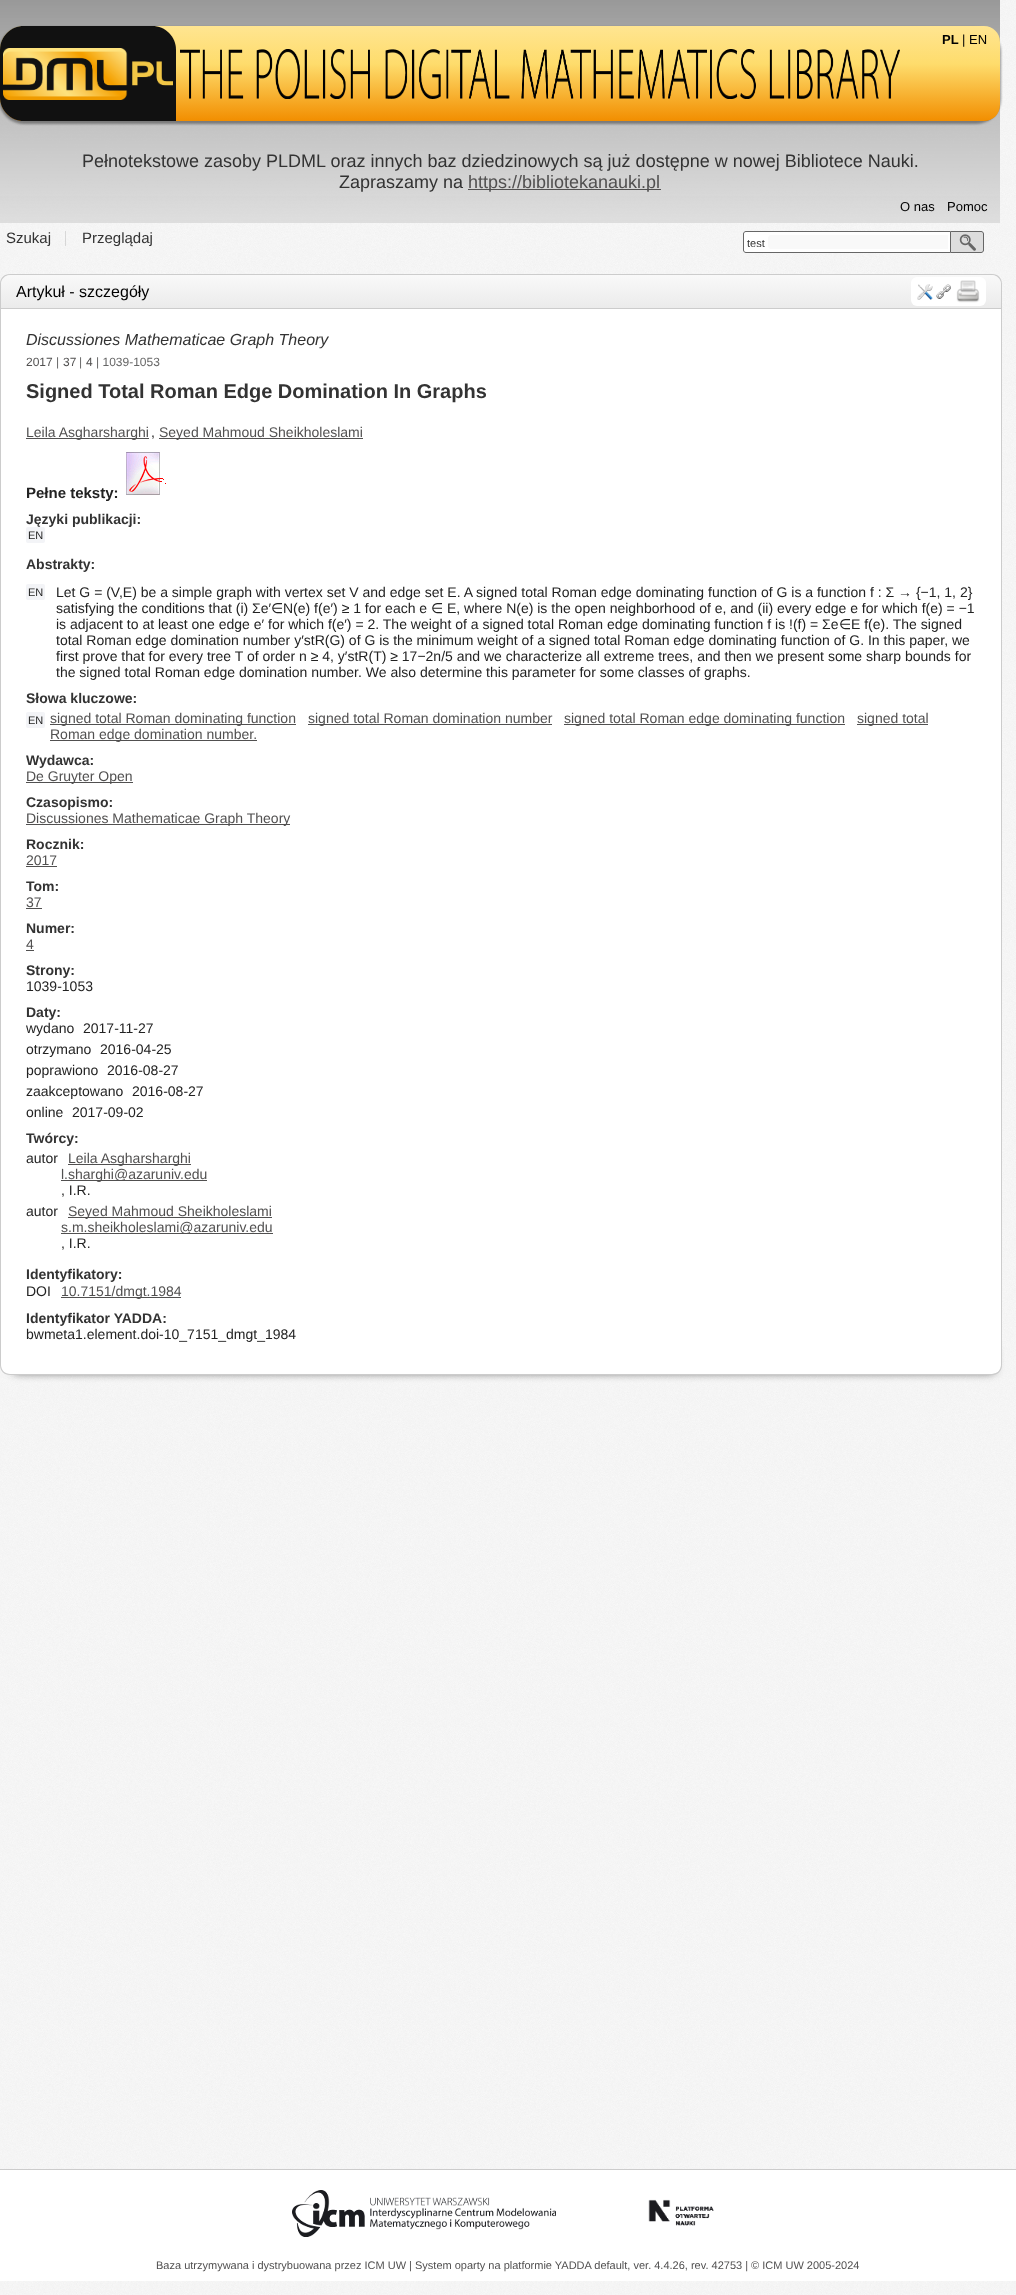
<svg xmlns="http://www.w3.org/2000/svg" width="1016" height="2295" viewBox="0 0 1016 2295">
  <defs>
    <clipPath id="clip1"><path d="M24 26H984C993 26 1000 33 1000 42V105C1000 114 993 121 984 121H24C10.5 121 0 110.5 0 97V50C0 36.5 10.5 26 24 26Z"/></clipPath>
    <linearGradient id="g1" gradientUnits="userSpaceOnUse" x1="500" y1="26" x2="500" y2="121"><stop offset="0" stop-color="#ffe591"/><stop offset="0.4" stop-color="#fedc6c"/><stop offset="1" stop-color="#f28e00"/></linearGradient>
    <linearGradient id="g2" gradientUnits="userSpaceOnUse" x1="501" y1="275" x2="501" y2="308"><stop offset="0" stop-color="#f9f9f9"/><stop offset="1" stop-color="#ebebeb"/></linearGradient>
  </defs>
  <rect width="100%" height="100%" fill="#fff"/>
  <image x="0" y="0" width="1016" height="2295" href="img/1.png"/>
  <rect x="-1" y="27" width="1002" height="97" rx="25" fill="#32323280" filter="blur(1px)"/>
  <g clip-path="url(#clip1)">
    <rect x="-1" y="27" width="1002" height="97" rx="25" fill="#32323280" filter="blur(1px)"/>
  </g>
  <path d="M24 26H984C993 26 1000 33 1000 42V105C1000 114 993 121 984 121H24C10.5 121 0 110.5 0 97V50C0 36.5 10.5 26 24 26Z" fill="url(#g1)"/>
  <path d="M24 26H152C165.5 26 176 36.5 176 50V121H24C10.5 121 0 110.5 0 97V50C0 36.5 10.5 26 24 26Z" fill="#111"/>
  <image x="3" y="48" width="170" height="52" href="img/2.png"/>
  <image x="180" y="49" width="720" height="50" href="img/3.png"/>
  <path d="M468 189h193v1H468z" fill="#515050"/>
  <image x="0" y="223" width="1000" height="31" href="img/4.png"/>
  <path d="M65 231h1v15H65z" fill="#64646433" filter="blur(0.5px)"/>
  <path d="M746 231.5H951.5V252.5H746C744.5 252.5 743.5 251.5 743.5 250V234C743.5 232.5 744.5 231.5 746 231.5Z" fill="#fff" stroke="#666"/>
  <path d="M771 235H948V249H771C769.5 249 768 247.5 768 246V238C768 236.5 769.5 235 771 235Z" fill="#f9f9f9"/>
  <path d="M950 231H981C982.5 231 984 232.5 984 234V250C984 251.5 982.5 253 981 253H950Z" fill="#ddd"/>
  <image x="959" y="234" width="17" height="17" href="img/5.png"/>
  <path d="M950.5 231.5H981C982.5 231.5 983.5 232.5 983.5 234V250C983.5 251.5 982.5 252.5 981 252.5H950.5Z" fill="none" stroke="#666"/>
  <path d="M10 274H992C998 274 1002 278 1002 284V309H0V284C0 278 4 274 10 274ZM10 275H992C997 275 1001 279 1001 284V309H1V284C1 279 5 275 10 275Z" fill="#ccc" fill-rule="evenodd"/>
  <path d="M11 275H991C996.5 275 1001 279.5 1001 285V308H1V285C1 279.5 5.5 275 11 275Z" fill="url(#g2)"/>
  <path d="M1 308h1000v1H1z" fill="#ccc"/>
  <rect x="911" y="277" width="75" height="29" rx="6" fill="#fff"/>
  <image x="917" y="284" width="16" height="16" href="img/6.png"/>
  <image x="936" y="284" width="15" height="15" href="img/7.png"/>
  <image x="956" y="280" width="24" height="23" href="img/8.png"/>
  <path d="M14 1347h980v25H14z" fill="#000000cc" filter="blur(5px)"/>
  <path d="M1 309H1001V1365C1001 1370 997 1374 992 1374H10C5 1374 1 1370 1 1365Z" fill="#fff"/>
  <path d="M0 309H1002V1365C1002 1371 998 1375 992 1375H10C4 1375 0 1371 0 1365ZM1 309H1001V1365C1001 1370 997 1374 992 1374H10C5 1374 1 1370 1 1365Z" fill="#ccc" fill-rule="evenodd"/>
  <path d="M26 438h123v1H26z" fill="#515050"/>
  <path d="M159 438h204v1H159z" fill="#515050"/>
  <image x="126" y="452" width="40" height="43" href="img/9.png"/>
  <rect x="26" y="527" width="19" height="16" rx="2" fill="#f3f4f7"/>
  <rect x="26" y="584" width="19" height="16" rx="2" fill="#f3f4f7"/>
  <rect x="26" y="712" width="19" height="16" rx="2" fill="#f3f4f7"/>
  <path d="M50 724h246v1H50z" fill="#515050"/>
  <path d="M308 724h244v1H308z" fill="#515050"/>
  <path d="M564 724h281v1H564z" fill="#515050"/>
  <path d="M857 724h71v1H857z" fill="#515050"/>
  <path d="M50 740h207v1H50z" fill="#515050"/>
  <path d="M26 782h107v1H26z" fill="#515050"/>
  <path d="M26 824h264v1H26z" fill="#515050"/>
  <path d="M26 866h31v1H26z" fill="#515050"/>
  <path d="M26 908h16v1H26z" fill="#515050"/>
  <path d="M26 950h8v1H26z" fill="#515050"/>
  <path d="M68 1164h123v1H68z" fill="#515050"/>
  <path d="M61 1180h146v1H61z" fill="#515050"/>
  <path d="M68 1217h204v1H68z" fill="#515050"/>
  <path d="M61 1233h212v1H61z" fill="#515050"/>
  <path d="M61 1297h120v1H61z" fill="#515050"/>
  <path d="M0 2170h1016v111H0z" fill="#fff"/>
  <path d="M0 2169h1016v1H0z" fill="#ccc"/>
  <image x="292" y="2190" width="264" height="47" href="img/10.png"/>
  <image x="648" y="2199" width="66" height="27" href="img/11.png"/>
  <text x="942" y="44" font-family="Liberation Sans" font-size="13" font-weight="bold" fill="#000">PL</text>
  <text x="962" y="44" font-family="Liberation Sans" font-size="13" fill="#000">| EN</text>
  <g font-family="Liberation Sans" font-size="18" fill="#333">
    <text x="82" y="167">Pełnotekstowe zasoby PLDML oraz innych baz dziedzinowych są już dostępne w nowej Bibliotece Nauki.</text>
    <text x="339" y="188">Zapraszamy na</text>
  </g>
  <text x="468" y="188" font-family="Liberation Sans" font-size="18" fill="#515050">https://bibliotekanauki.pl</text>
  <g font-family="Liberation Sans" font-size="13" fill="#000">
    <text x="900" y="211">O nas</text>
    <text x="947" y="211">Pomoc</text>
  </g>
  <g font-family="Liberation Sans" font-size="15" fill="#333">
    <text x="6" y="243">Szukaj</text>
    <text x="82" y="243">Przeglądaj</text>
  </g>
  <text x="747" y="247" font-family="Liberation Sans" font-size="11" fill="#333">test</text>
  <text x="16" y="297" font-family="Liberation Sans" font-size="16" fill="#000">Artykuł - szczegóły</text>
  <text x="26" y="345" font-family="Liberation Sans" font-size="16" font-style="italic" fill="#333">Discussiones Mathematicae Graph Theory</text>
  <text x="26" y="366" font-family="Liberation Sans" font-size="12" fill="#515050">2017</text>
  <text x="56" y="366" font-family="Liberation Sans" font-size="12" fill="#666">|</text>
  <text x="63" y="366" font-family="Liberation Sans" font-size="12" fill="#515050">37</text>
  <text x="79" y="366" font-family="Liberation Sans" font-size="12" fill="#666">|</text>
  <text x="86" y="366" font-family="Liberation Sans" font-size="12" fill="#515050">4</text>
  <text x="96" y="366" font-family="Liberation Sans" font-size="12" fill="#666">| 1039-1053</text>
  <text x="26" y="398" font-family="Liberation Sans" font-size="20" font-weight="bold" fill="#333">Signed Total Roman Edge Domination In Graphs</text>
  <text x="26" y="437" font-family="Liberation Sans" font-size="14" fill="#515050">Leila Asgharsharghi</text>
  <text x="151" y="437" font-family="Liberation Sans" font-size="14" fill="#222">,</text>
  <text x="159" y="437" font-family="Liberation Sans" font-size="14" fill="#515050">Seyed Mahmoud Sheikholeslami</text>
  <text x="26" y="498" font-family="Liberation Sans" font-size="15" font-weight="bold" fill="#222">Pełne teksty:</text>
  <text x="26" y="524" font-family="Liberation Sans" font-size="14" font-weight="bold" fill="#333">Języki publikacji:</text>
  <text x="28" y="539" font-family="Liberation Sans" font-size="11" fill="#222">EN</text>
  <text x="26" y="569" font-family="Liberation Sans" font-size="14" font-weight="bold" fill="#333">Abstrakty:</text>
  <text x="28" y="596" font-family="Liberation Sans" font-size="11" fill="#222">EN</text>
  <g font-family="Liberation Sans" font-size="14" fill="#222">
    <text x="56" y="597">Let G = (V,E) be a simple graph with vertex set V and edge set E. A signed total Roman edge dominating function of G is a function f : Ʃ → {−1, 1, 2}</text>
    <text x="56" y="613">satisfying the conditions that (i) Ʃe′</text>
  </g>
  <text x="271" y="613" font-family="DejaVu Sans" font-size="14" fill="#222">∈</text>
  <text x="283" y="613" font-family="Liberation Sans" font-size="14" fill="#222">N(e) f(e′) ≥ 1 for each e</text>
  <text x="431" y="613" font-family="DejaVu Sans" font-size="14" fill="#222">∈</text>
  <g font-family="Liberation Sans" font-size="14" fill="#222">
    <text x="447" y="613">E, where N(e) is the open neighborhood of e, and (ii) every edge e for which f(e) = −1</text>
    <text x="56" y="629">is adjacent to at least one edge e′ for which f(e′) = 2. The weight of a signed total Roman edge dominating function f is !(f) = Ʃe</text>
  </g>
  <text x="839" y="629" font-family="DejaVu Sans" font-size="14" fill="#222">∈</text>
  <g font-family="Liberation Sans" font-size="14" fill="#222">
    <text x="851" y="629">E f(e). The signed</text>
    <text x="56" y="645">total Roman edge domination number y′stR(G) of G is the minimum weight of a signed total Roman edge dominating function of G. In this paper, we</text>
    <text x="56" y="661">first prove that for every tree T of order n ≥ 4, y′stR(T) ≥ 17−2n/5 and we characterize all extreme trees, and then we present some sharp bounds for</text>
    <text x="56" y="677">the signed total Roman edge domination number. We also determine this parameter for some classes of graphs.</text>
  </g>
  <text x="26" y="703" font-family="Liberation Sans" font-size="14" font-weight="bold" fill="#333">Słowa kluczowe:</text>
  <text x="28" y="724" font-family="Liberation Sans" font-size="11" fill="#222">EN</text>
  <g font-family="Liberation Sans" font-size="14" fill="#515050">
    <text x="50" y="723">signed total Roman dominating function</text>
    <text x="308" y="723">signed total Roman domination number</text>
    <text x="564" y="723">signed total Roman edge dominating function</text>
    <text x="857" y="723">signed total</text>
    <text x="50" y="739">Roman edge domination number.</text>
  </g>
  <text x="26" y="765" font-family="Liberation Sans" font-size="14" font-weight="bold" fill="#333">Wydawca:</text>
  <text x="26" y="781" font-family="Liberation Sans" font-size="14" fill="#515050">De Gruyter Open</text>
  <text x="26" y="807" font-family="Liberation Sans" font-size="14" font-weight="bold" fill="#333">Czasopismo:</text>
  <text x="26" y="823" font-family="Liberation Sans" font-size="14" fill="#515050">Discussiones Mathematicae Graph Theory</text>
  <text x="26" y="849" font-family="Liberation Sans" font-size="14" font-weight="bold" fill="#333">Rocznik:</text>
  <text x="26" y="865" font-family="Liberation Sans" font-size="14" fill="#515050">2017</text>
  <text x="26" y="891" font-family="Liberation Sans" font-size="14" font-weight="bold" fill="#333">Tom:</text>
  <text x="26" y="907" font-family="Liberation Sans" font-size="14" fill="#515050">37</text>
  <text x="26" y="933" font-family="Liberation Sans" font-size="14" font-weight="bold" fill="#333">Numer:</text>
  <text x="26" y="949" font-family="Liberation Sans" font-size="14" fill="#515050">4</text>
  <text x="26" y="975" font-family="Liberation Sans" font-size="14" font-weight="bold" fill="#333">Strony:</text>
  <text x="26" y="991" font-family="Liberation Sans" font-size="14" fill="#222">1039-1053</text>
  <text x="26" y="1017" font-family="Liberation Sans" font-size="14" font-weight="bold" fill="#333">Daty:</text>
  <g font-family="Liberation Sans" font-size="14" fill="#222">
    <text x="26" y="1033">wydano</text>
    <text x="83" y="1033">2017-11-27</text>
    <text x="26" y="1054">otrzymano</text>
    <text x="100" y="1054">2016-04-25</text>
    <text x="26" y="1075">poprawiono</text>
    <text x="107" y="1075">2016-08-27</text>
    <text x="26" y="1096">zaakceptowano</text>
    <text x="132" y="1096">2016-08-27</text>
    <text x="26" y="1117">online</text>
    <text x="72" y="1117">2017-09-02</text>
  </g>
  <text x="26" y="1143" font-family="Liberation Sans" font-size="14" font-weight="bold" fill="#333">Twórcy:</text>
  <text x="26" y="1163" font-family="Liberation Sans" font-size="14" fill="#222">autor</text>
  <g font-family="Liberation Sans" font-size="14" fill="#515050">
    <text x="68" y="1163">Leila Asgharsharghi</text>
    <text x="61" y="1179">l.sharghi@azaruniv.edu</text>
  </g>
  <g font-family="Liberation Sans" font-size="14" fill="#222">
    <text x="61" y="1195">, I.R.</text>
    <text x="26" y="1216">autor</text>
  </g>
  <g font-family="Liberation Sans" font-size="14" fill="#515050">
    <text x="68" y="1216">Seyed Mahmoud Sheikholeslami</text>
    <text x="61" y="1232">s.m.sheikholeslami@azaruniv.edu</text>
  </g>
  <text x="61" y="1248" font-family="Liberation Sans" font-size="14" fill="#222">, I.R.</text>
  <text x="26" y="1279" font-family="Liberation Sans" font-size="14" font-weight="bold" fill="#333">Identyfikatory:</text>
  <text x="26" y="1296" font-family="Liberation Sans" font-size="14" fill="#222">DOI</text>
  <text x="61" y="1296" font-family="Liberation Sans" font-size="14" fill="#515050">10.7151/dmgt.1984</text>
  <text x="26" y="1323" font-family="Liberation Sans" font-size="14" font-weight="bold" fill="#333">Identyfikator YADDA:</text>
  <text x="26" y="1339" font-family="Liberation Sans" font-size="14" fill="#222">bwmeta1.element.doi-10_7151_dmgt_1984</text>
  <text x="156" y="2269" font-family="Liberation Sans" font-size="11" fill="#515050">Baza utrzymywana i dystrybuowana przez ICM UW | System oparty na platformie YADDA default, ver. 4.4.26, rev. 42753 | © ICM UW 2005-2024</text>
</svg>
